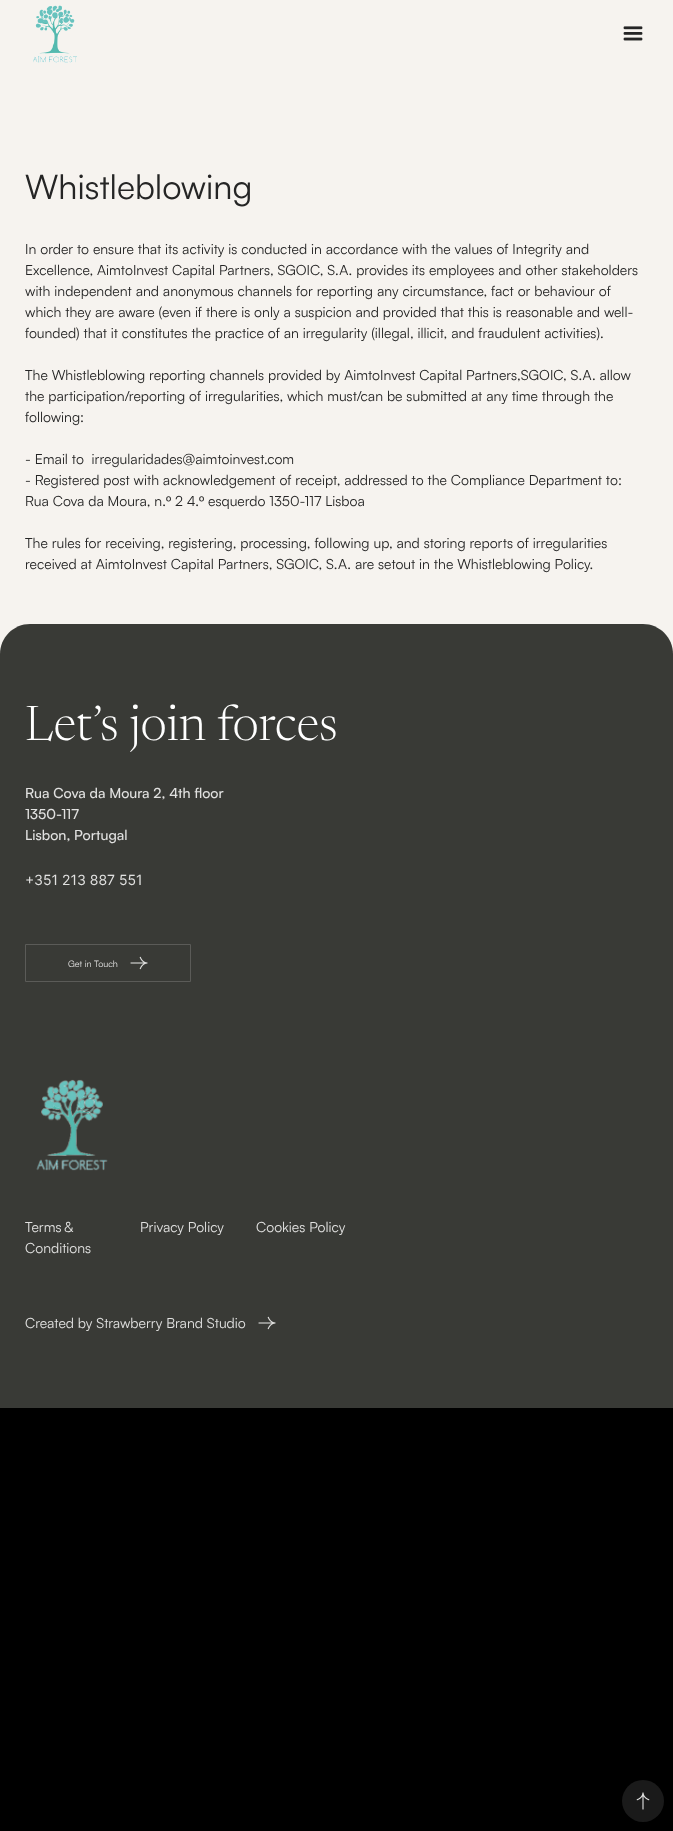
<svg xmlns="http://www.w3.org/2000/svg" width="673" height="1831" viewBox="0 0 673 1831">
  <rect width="100%" height="100%" fill="#000"/>
  <path d="M0 0h673v654H0z" fill="#f6f3ef"/>
  <image x="33" y="5" width="44" height="58" href="img/1.png"/>
  <image x="623" y="26" width="20" height="15" href="img/2.png"/>
  <path d="M30 624H643C659.5 624 673 637.5 673 654V1408H0V654C0 637.5 13.5 624 30 624Z" fill="#393a36"/>
  <path d="M25.5 944.5h165v37H25.5z" fill="none" stroke="#5b5b58"/>
  <image x="130" y="956" width="18" height="14" href="img/3.png"/>
  <image x="36" y="1079" width="72" height="92" href="img/4.png"/>
  <image x="258" y="1316" width="18" height="14" href="img/5.png"/>
  <circle cx="643" cy="1801" r="21" fill="#1a1a1a"/>
  <image x="636" y="1792" width="14" height="18" href="img/6.png"/>
  <text x="25" y="199" font-family="Satoshi" font-size="34" fill="#252525">Whistleblowing</text>
  <g font-family="Satoshi" font-size="14" fill="#252525">
    <text x="25" y="254">In order to ensure that its activity is conducted in accordance with the values of Integrity and</text>
    <text x="25" y="275">Excellence, AimtoInvest Capital Partners, SGOIC, S.A. provides its employees and other stakeholders</text>
    <text x="25" y="296">with independent and anonymous channels for reporting any circumstance, fact or behaviour of</text>
    <text x="25" y="317">which they are aware (even if there is only a suspicion and provided that this is reasonable and well-</text>
    <text x="25" y="338">founded) that it constitutes the practice of an irregularity (illegal, illicit, and fraudulent activities).</text>
    <text x="25" y="380">The Whistleblowing reporting channels provided by AimtoInvest Capital Partners,SGOIC, S.A. allow</text>
    <text x="25" y="401">the participation/reporting of irregularities, which must/can be submitted at any time through the</text>
    <text x="25" y="422">following:</text>
    <text x="25" y="464" xml:space="preserve">- Email to  irregularidades@aimtoinvest.com</text>
    <text x="25" y="485">- Registered post with acknowledgement of receipt, addressed to the Compliance Department to:</text>
    <text x="25" y="506">Rua Cova da Moura, n.</text>
  </g>
  <text x="166" y="506" font-family="Liberation Sans" font-size="14" fill="#252525">º</text>
  <text x="175" y="506" font-family="Satoshi" font-size="14" fill="#252525">2 4.</text>
  <text x="199" y="506" font-family="Liberation Sans" font-size="14" fill="#252525">º</text>
  <g font-family="Satoshi" font-size="14" fill="#252525">
    <text x="208" y="506">esquerdo 1350-117 Lisboa</text>
    <text x="25" y="548">The rules for receiving, registering, processing, following up, and storing reports of irregularities</text>
    <text x="25" y="569">received at AimtoInvest Capital Partners, SGOIC, S.A. are setout in the Whistleblowing Policy.</text>
  </g>
  <text x="25" y="740" font-family="Newsreader" font-size="49" font-weight="300" fill="#fff">Let’s join forces</text>
  <g font-family="Satoshi" font-size="14" font-weight="500" fill="#e1e1e0">
    <text x="25" y="798">Rua Cova da Moura 2, 4th floor</text>
    <text x="25" y="819">1350-117</text>
    <text x="25" y="840">Lisbon, Portugal</text>
  </g>
  <text x="25" y="885" font-family="Inter" font-size="14" fill="#e1e1e0">+351 213 887 551</text>
  <text x="68" y="967" font-family="Satoshi" font-size="9" fill="#e1e1e0">Get in Touch</text>
  <g font-family="Satoshi" font-size="14" fill="#e1e1e0">
    <text x="25" y="1232" word-spacing="-1">Terms &amp;</text>
    <text x="25" y="1253">Conditions</text>
    <text x="140" y="1232">Privacy Policy</text>
    <text x="256" y="1232">Cookies Policy</text>
    <text x="25" y="1328">Created by Strawberry Brand Studio</text>
  </g>
</svg>
